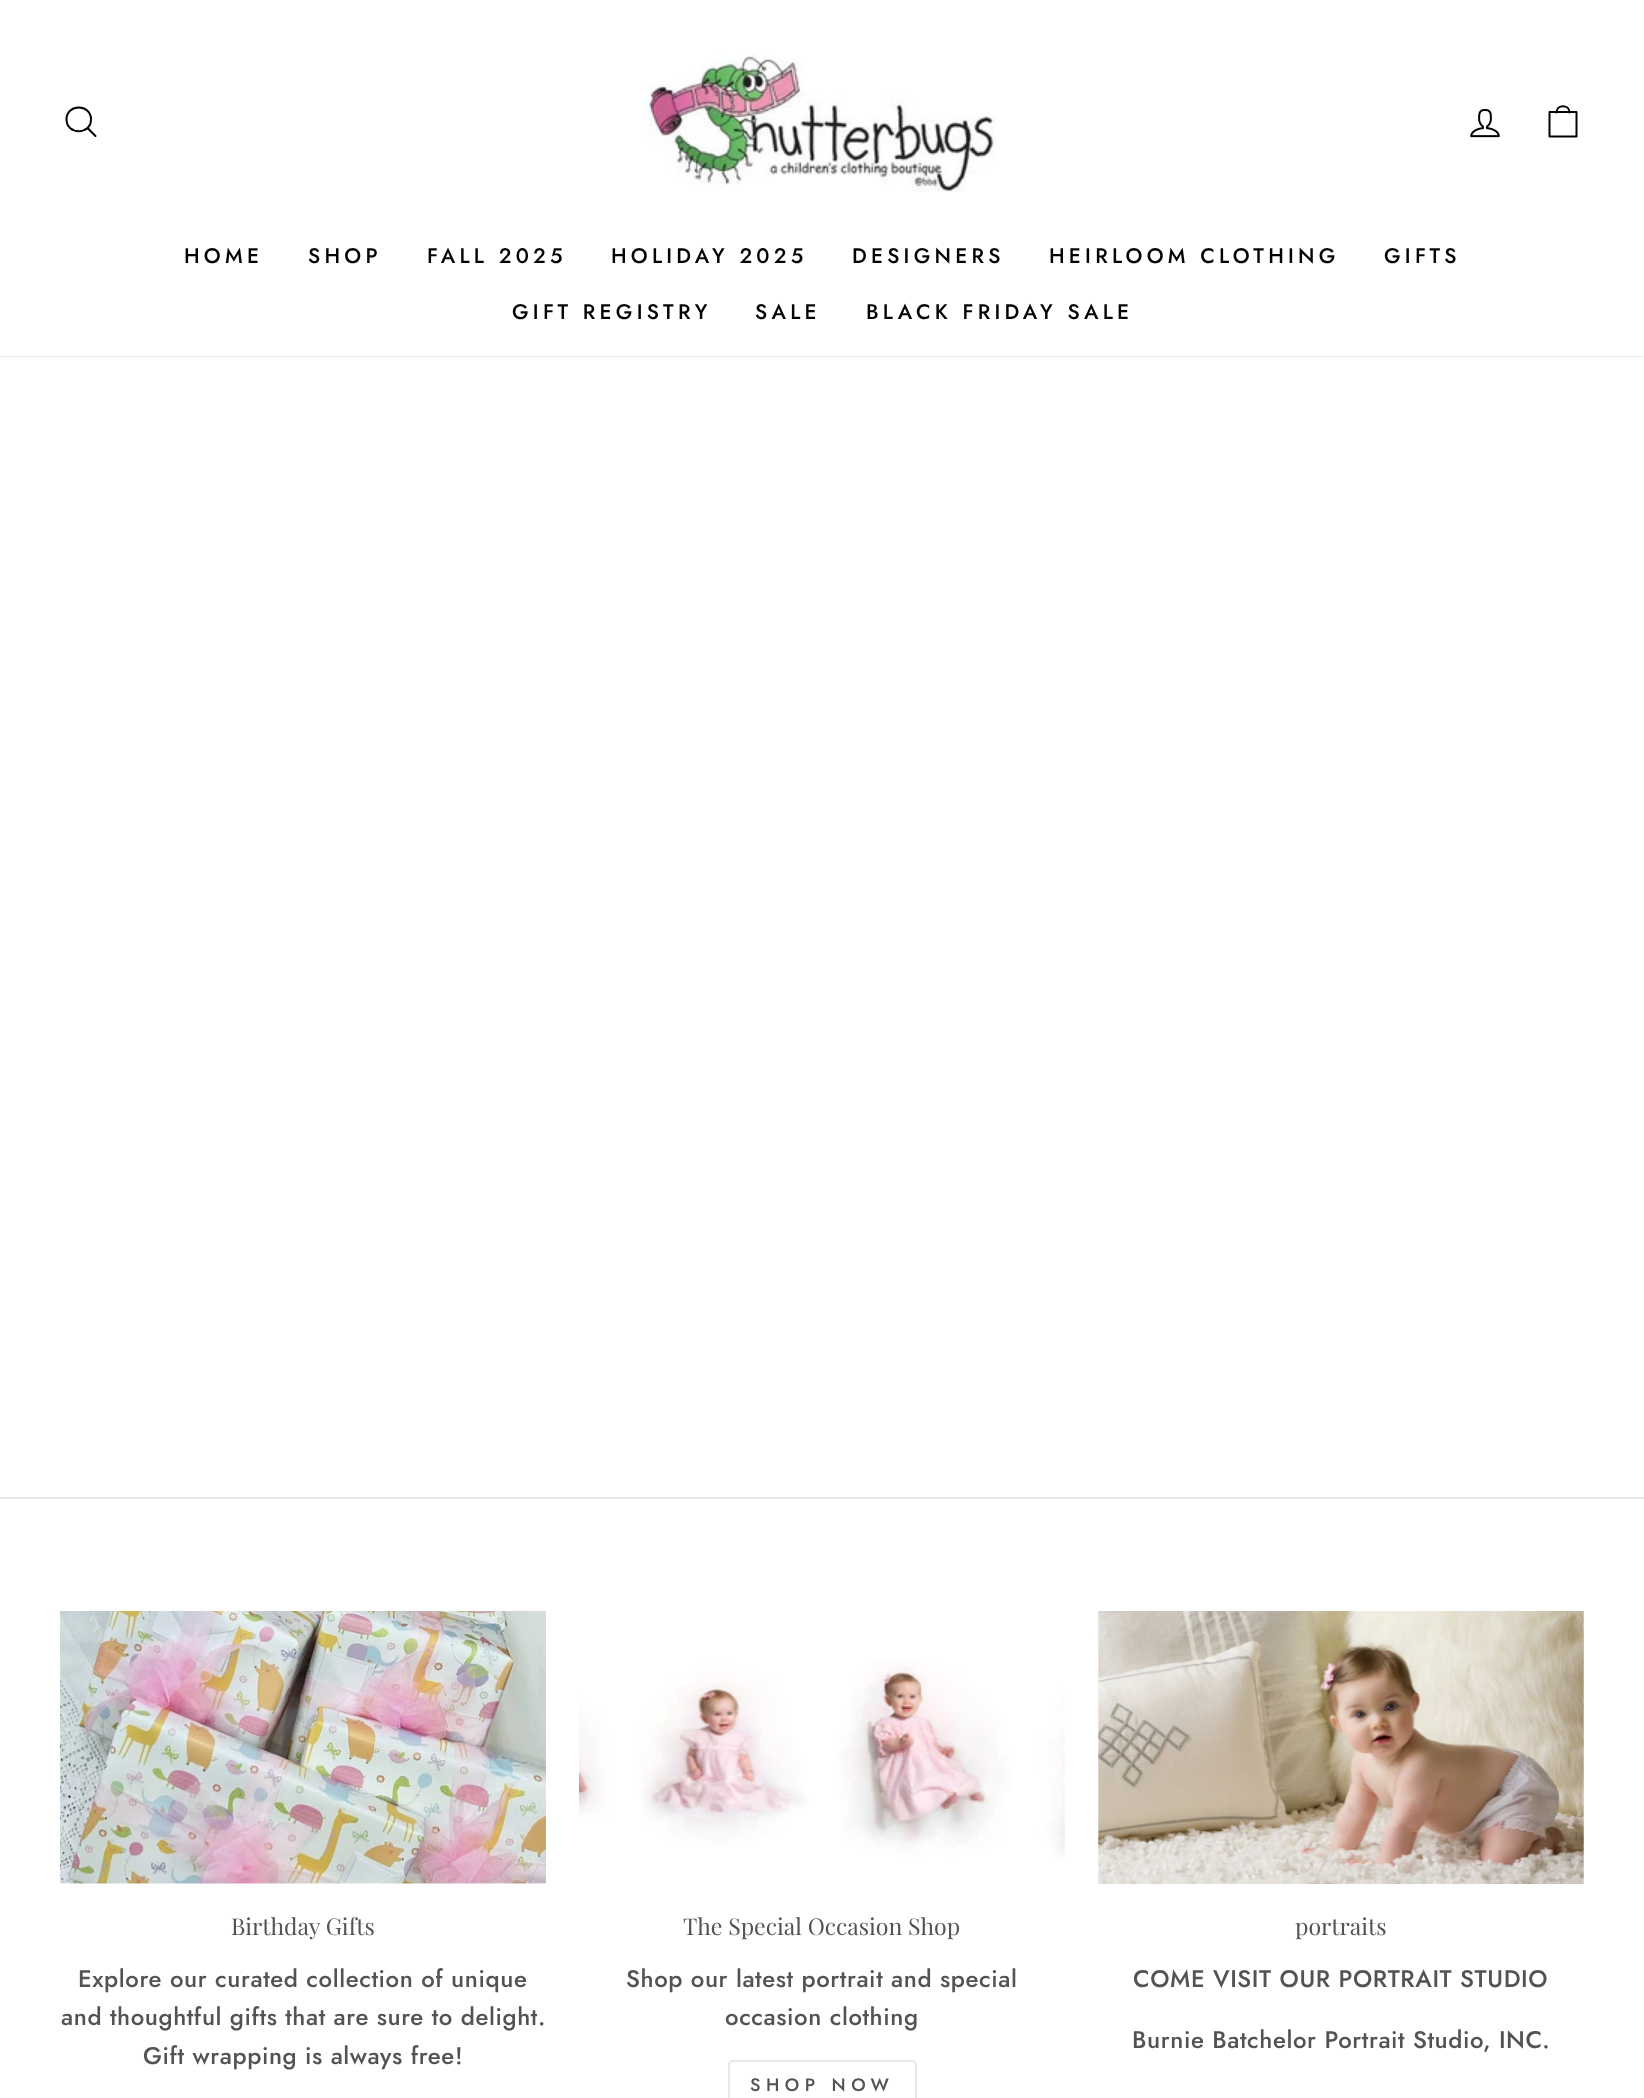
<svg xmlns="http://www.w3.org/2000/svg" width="1644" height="2098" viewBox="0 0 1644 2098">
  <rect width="100%" height="100%" fill="#fff"/>
  <path d="M0 0h1644v356H0z" fill="#00000033" filter="blur(1px)"/>
  <path d="M0 0h1644v356H0z" fill="#fff"/>
  <path d="M91 119.5C91 135 66.5 135 66.5 119.5C66.5 103.5 91 103.5 91 119.5ZM95.5 136L87.5 128" fill="none" stroke="#020202" stroke-width="2" stroke-linecap="round" stroke-linejoin="round"/>
  <image x="642" y="54" width="354" height="138" href="img/1.png"/>
  <image x="1470" y="108" width="30" height="30" href="img/2.png"/>
  <path d="M1549.5 112H1576.5V136.5H1549.5ZM1556.5 112.5C1556.5 104 1569.5 104 1569.5 112.5" fill="none" stroke="#020202" stroke-width="2" stroke-linecap="round" stroke-linejoin="round"/>
  <path d="M0 1497h1644v2H0z" fill="#e8e8e1"/>
  <image x="60" y="1611" width="486" height="273" href="img/3.png"/>
  <image x="579" y="1662" width="486" height="196" href="img/4.png"/>
  <rect x="729" y="2061" width="187" height="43" rx="4" fill="none" stroke="#e8e8e1" stroke-width="2"/>
  <image x="1098" y="1611" width="486" height="273" href="img/5.png"/>
  <g font-family="Jost" font-size="21" font-weight="500" letter-spacing="4.25" fill="#020202">
    <text x="184" y="263">HOME</text>
    <text x="308" y="263">SHOP</text>
    <text x="427" y="263">FALL 2025</text>
    <text x="611" y="263">HOLIDAY 2025</text>
    <text x="852" y="263">DESIGNERS</text>
    <text x="1049" y="263">HEIRLOOM CLOTHING</text>
    <text x="1384" y="263">GIFTS</text>
    <text x="512" y="319">GIFT REGISTRY</text>
    <text x="755" y="319">SALE</text>
    <text x="866" y="319">BLACK FRIDAY SALE</text>
  </g>
  <text x="231" y="1935" font-family="Playfair Display" font-size="23.1" fill="#545252">Birthday Gifts</text>
  <g font-family="Jost" font-size="24" font-weight="500" letter-spacing="0.6" fill="#545252">
    <text x="78" y="1987">Explore our curated collection of unique</text>
    <text x="61" y="2025">and thoughtful gifts that are sure to delight.</text>
    <text x="143" y="2064">Gift wrapping is always free!</text>
  </g>
  <text x="683" y="1935" font-family="Playfair Display" font-size="23.1" fill="#545252">The Special Occasion Shop</text>
  <g font-family="Jost" font-size="24" font-weight="500" letter-spacing="0.6" fill="#545252">
    <text x="626" y="1987">Shop our latest portrait and special</text>
    <text x="725" y="2025">occasion clothing</text>
  </g>
  <text x="750" y="2091" font-family="Jost" font-size="18" font-weight="500" letter-spacing="5.5" fill="#545252">SHOP NOW</text>
  <text x="1295" y="1935" font-family="Playfair Display" font-size="23.1" fill="#545252">portraits</text>
  <g font-family="Jost" font-size="24" font-weight="500" letter-spacing="0.6" fill="#545252">
    <text x="1133" y="1987">COME VISIT OUR PORTRAIT STUDIO</text>
    <text x="1132" y="2048">Burnie Batchelor Portrait Studio, INC.</text>
  </g>
</svg>
